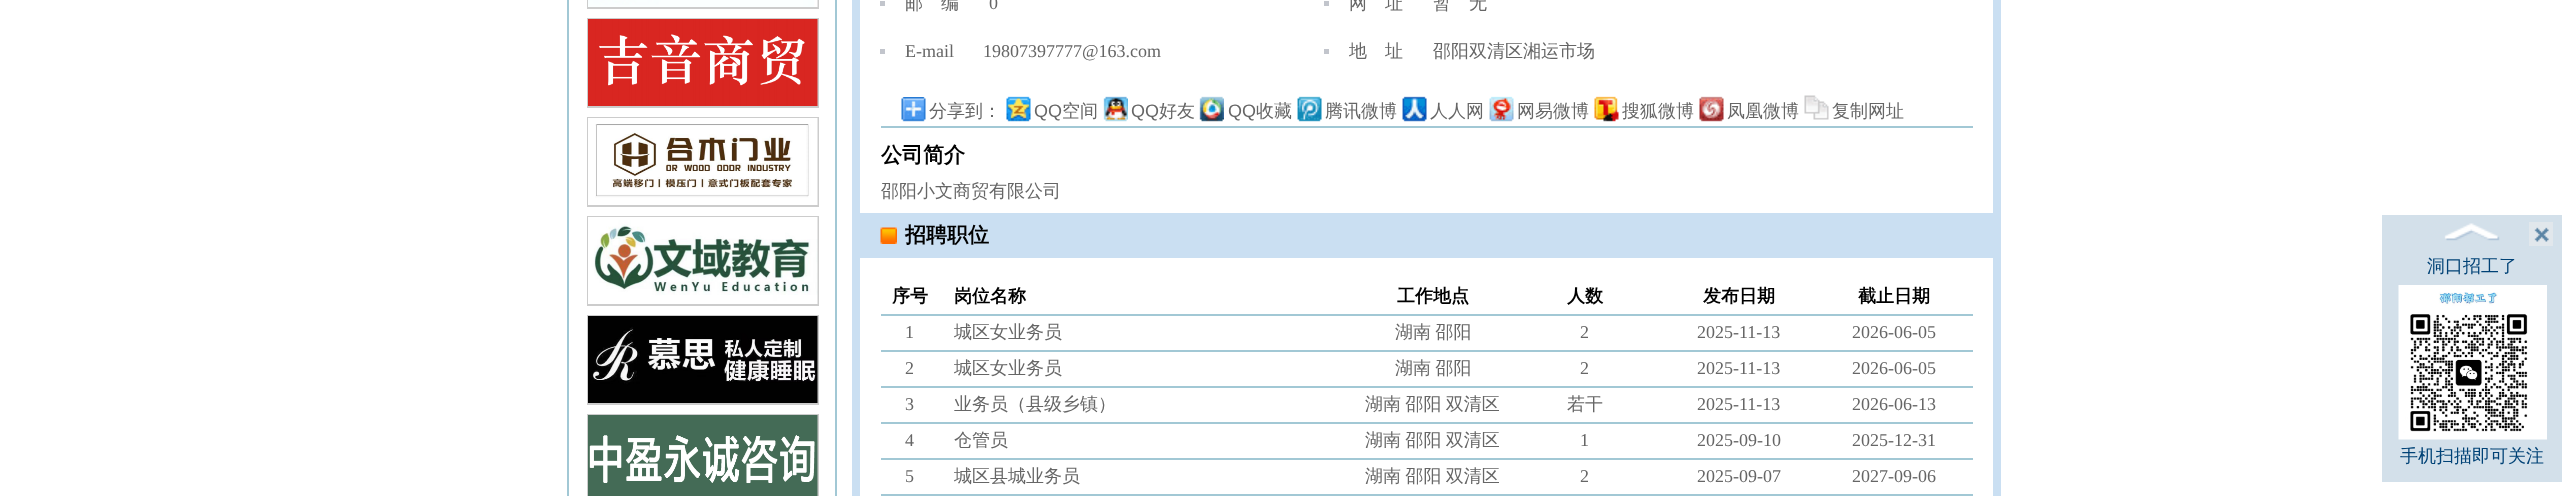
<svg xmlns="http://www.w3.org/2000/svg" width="2573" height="496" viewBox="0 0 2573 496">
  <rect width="100%" height="100%" fill="#fff"/>
  <path d="M568 -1h268v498H568z" fill="none" stroke="#a2c8d5" stroke-width="2"/>
  <path d="M588 -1h230v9H588z" fill="none" stroke="#ccc" stroke-width="2"/>
  <image x="588" y="0" width="230" height="7" href="img/1.png"/>
  <path d="M588 19h230v88H588z" fill="none" stroke="#ccc" stroke-width="2"/>
  <image x="588" y="19" width="230" height="87" href="img/2.png"/>
  <path d="M588 118h230v88H588z" fill="none" stroke="#ccc" stroke-width="2"/>
  <image x="588" y="118" width="230" height="87" href="img/3.png"/>
  <path d="M588 217h230v88H588z" fill="none" stroke="#ccc" stroke-width="2"/>
  <image x="588" y="217" width="230" height="87" href="img/4.png"/>
  <path d="M588 316h230v88H588z" fill="none" stroke="#ccc" stroke-width="2"/>
  <image x="588" y="316" width="230" height="87" href="img/5.png"/>
  <path d="M588 415h230v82H588z" fill="none" stroke="#ccc" stroke-width="2"/>
  <image x="588" y="415" width="230" height="81" href="img/6.png"/>
  <path d="M856 -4h1141v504H856z" fill="none" stroke="#cadff2" stroke-width="8"/>
  <path d="M880 1h5v5H880z" fill="#c2c5cc"/>
  <path d="M1324 1h5v5H1324z" fill="#c2c5cc"/>
  <path d="M880 49h5v5H880z" fill="#c2c5cc"/>
  <path d="M1324 49h5v5H1324z" fill="#c2c5cc"/>
  <path d="M881 126h1092v2H881z" fill="#a2c8d5"/>
  <image x="901" y="97" width="25" height="25" href="img/7.png"/>
  <image x="1006" y="96" width="25" height="26" href="img/8.png"/>
  <image x="1103" y="96" width="25" height="26" href="img/9.png"/>
  <image x="1199" y="96" width="25" height="26" href="img/10.png"/>
  <image x="1297" y="96" width="25" height="26" href="img/11.png"/>
  <image x="1402" y="96" width="25" height="26" href="img/12.png"/>
  <image x="1489" y="96" width="25" height="26" href="img/13.png"/>
  <image x="1594" y="96" width="25" height="26" href="img/14.png"/>
  <image x="1699" y="96" width="25" height="26" href="img/15.png"/>
  <image x="1804" y="95" width="25" height="25" href="img/16.png"/>
  <path d="M860 213h1133v45H860z" fill="#cadff2"/>
  <image x="880" y="227" width="17" height="17" href="img/17.png"/>
  <path d="M881 314h1092v2H881z" fill="#a2c8d5"/>
  <path d="M881 350h1092v2H881z" fill="#a2c8d5"/>
  <path d="M881 386h1092v2H881z" fill="#a2c8d5"/>
  <path d="M881 422h1092v2H881z" fill="#a2c8d5"/>
  <path d="M881 458h1092v2H881z" fill="#a2c8d5"/>
  <path d="M881 494h1092v2H881z" fill="#a2c8d5"/>
  <path d="M2382 215h180v267H2382z" fill="#d3e0ea"/>
  <image x="2444" y="223" width="56" height="18" href="img/18.png"/>
  <image x="2529" y="222" width="24" height="24" href="img/19.png"/>
  <image x="2398" y="285" width="149" height="155" href="img/20.png"/>
  <text x="905" y="9" font-family="WenQuanYi Zen Hei" font-size="18" font-weight="500" fill="#666">邮　编</text>
  <text x="989" y="9" font-family="Liberation Serif" font-size="18" fill="#666">0</text>
  <g font-family="WenQuanYi Zen Hei" font-size="18" font-weight="500" fill="#666">
    <text x="1349" y="9">网　址</text>
    <text x="1433" y="9">暂　无</text>
  </g>
  <g font-family="Liberation Serif" font-size="18" fill="#666">
    <text x="905" y="57">E-mail</text>
    <text x="983" y="57">19807397777@163.com</text>
  </g>
  <g font-family="WenQuanYi Zen Hei" font-size="18" font-weight="500" fill="#666">
    <text x="1349" y="57">地　址</text>
    <text x="1433" y="57">邵阳双清区湘运市场</text>
    <text x="929" y="117">分享到：</text>
  </g>
  <text x="1034" y="117" font-family="Liberation Sans" font-size="18" fill="#666">QQ</text>
  <text x="1062" y="117" font-family="WenQuanYi Zen Hei" font-size="18" font-weight="500" fill="#666">空间</text>
  <text x="1131" y="117" font-family="Liberation Sans" font-size="18" fill="#666">QQ</text>
  <text x="1159" y="117" font-family="WenQuanYi Zen Hei" font-size="18" font-weight="500" fill="#666">好友</text>
  <text x="1228" y="117" font-family="Liberation Sans" font-size="18" fill="#666">QQ</text>
  <g font-family="WenQuanYi Zen Hei" font-size="18" font-weight="500" fill="#666">
    <text x="1256" y="117">收藏</text>
    <text x="1325" y="117">腾讯微博</text>
    <text x="1430" y="117">人人网</text>
    <text x="1517" y="117">网易微博</text>
    <text x="1622" y="117">搜狐微博</text>
    <text x="1727" y="117">凤凰微博</text>
    <text x="1832" y="117">复制网址</text>
  </g>
  <text x="881" y="162" font-family="WenQuanYi Zen Hei" font-size="21" font-weight="bold" fill="#000">公司简介</text>
  <text x="881" y="197" font-family="WenQuanYi Zen Hei" font-size="18" font-weight="500" fill="#666">邵阳小文商贸有限公司</text>
  <text x="905" y="242" font-family="WenQuanYi Zen Hei" font-size="21" font-weight="bold" fill="#000">招聘职位</text>
  <g font-family="WenQuanYi Zen Hei" font-size="18" font-weight="bold" fill="#000">
    <text x="892" y="302">序号</text>
    <text x="954" y="302">岗位名称</text>
    <text x="1397" y="302">工作地点</text>
    <text x="1567" y="302">人数</text>
    <text x="1703" y="302">发布日期</text>
    <text x="1858" y="302">截止日期</text>
  </g>
  <text x="905" y="338" font-family="Liberation Serif" font-size="18" fill="#666">1</text>
  <g font-family="WenQuanYi Zen Hei" font-size="18" font-weight="500" fill="#666">
    <text x="954" y="338">城区女业务员</text>
    <text x="1395" y="338" word-spacing="-1">湖南 邵阳</text>
  </g>
  <g font-family="Liberation Serif" font-size="18" fill="#666">
    <text x="1580" y="338">2</text>
    <text x="1697" y="338">2025-11-13</text>
    <text x="1852" y="338">2026-06-05</text>
    <text x="905" y="374">2</text>
  </g>
  <g font-family="WenQuanYi Zen Hei" font-size="18" font-weight="500" fill="#666">
    <text x="954" y="374">城区女业务员</text>
    <text x="1395" y="374" word-spacing="-1">湖南 邵阳</text>
  </g>
  <g font-family="Liberation Serif" font-size="18" fill="#666">
    <text x="1580" y="374">2</text>
    <text x="1697" y="374">2025-11-13</text>
    <text x="1852" y="374">2026-06-05</text>
    <text x="905" y="410">3</text>
  </g>
  <g font-family="WenQuanYi Zen Hei" font-size="18" font-weight="500" fill="#666">
    <text x="954" y="410">业务员（县级乡镇）</text>
    <text x="1365" y="410" word-spacing="-1">湖南 邵阳 双清区</text>
    <text x="1567" y="410">若干</text>
  </g>
  <g font-family="Liberation Serif" font-size="18" fill="#666">
    <text x="1697" y="410">2025-11-13</text>
    <text x="1852" y="410">2026-06-13</text>
    <text x="905" y="446">4</text>
  </g>
  <g font-family="WenQuanYi Zen Hei" font-size="18" font-weight="500" fill="#666">
    <text x="954" y="446">仓管员</text>
    <text x="1365" y="446" word-spacing="-1">湖南 邵阳 双清区</text>
  </g>
  <g font-family="Liberation Serif" font-size="18" fill="#666">
    <text x="1580" y="446">1</text>
    <text x="1697" y="446">2025-09-10</text>
    <text x="1852" y="446">2025-12-31</text>
    <text x="905" y="482">5</text>
  </g>
  <g font-family="WenQuanYi Zen Hei" font-size="18" font-weight="500" fill="#666">
    <text x="954" y="482">城区县城业务员</text>
    <text x="1365" y="482" word-spacing="-1">湖南 邵阳 双清区</text>
  </g>
  <g font-family="Liberation Serif" font-size="18" fill="#666">
    <text x="1580" y="482">2</text>
    <text x="1697" y="482">2025-09-07</text>
    <text x="1852" y="482">2027-09-06</text>
  </g>
  <g font-family="WenQuanYi Zen Hei" font-size="18" font-weight="500" fill="#004276">
    <text x="2427" y="272">洞口招工了</text>
    <text x="2400" y="462">手机扫描即可关注</text>
  </g>
</svg>
